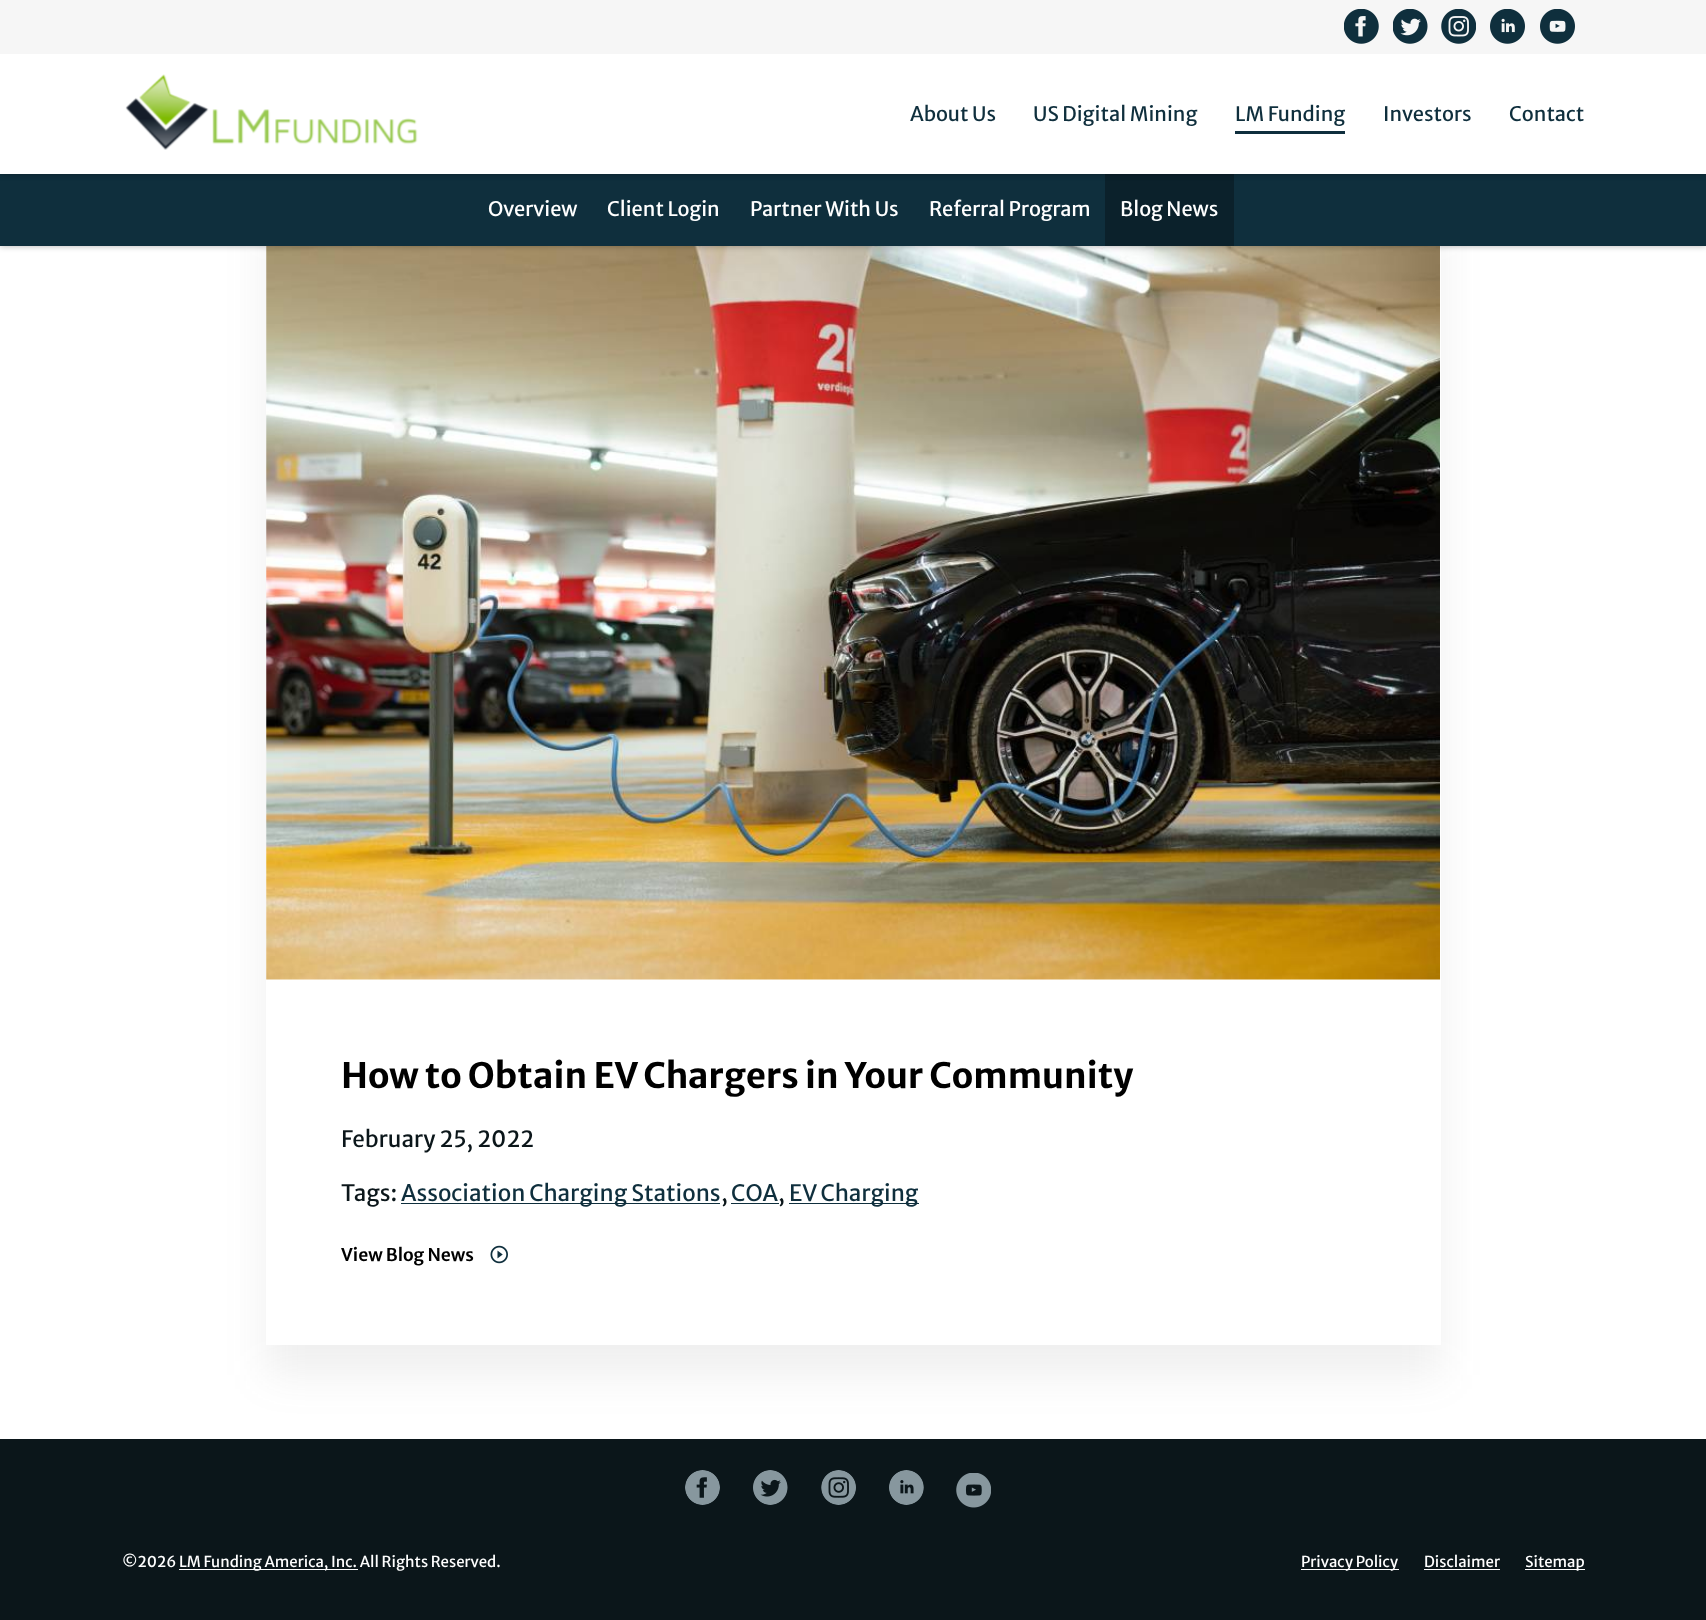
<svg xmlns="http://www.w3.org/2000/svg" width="1706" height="1620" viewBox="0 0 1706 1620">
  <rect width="100%" height="100%" fill="#fff"/>
  <path d="M266 226h1175v1149H266z" fill="#6666661a" filter="blur(20px)"/>
  <path d="M266 246h1175v1099H266z" fill="#fff"/>
  <image x="266" y="246" width="1174" height="734" href="img/7.png"/>
  <path d="M0 173h1706v73H0z" fill="#0000004d" filter="blur(3px)"/>
  <path d="M0 174h1706v72H0z" fill="#0f2f3d"/>
  <path d="M1105 174h129v72H1105z" fill="#0b212b"/>
  <path d="M0 0h1706v174H0z" fill="#0000004d" filter="blur(3px)"/>
  <path d="M0 54h1706v120H0z" fill="#fff"/>
  <path d="M0 0h1706v54H0z" fill="#f6f6f6"/>
  <image x="1344" y="9" width="35" height="35" href="img/1.png"/>
  <image x="1393" y="9" width="35" height="35" href="img/2.png"/>
  <image x="1441" y="9" width="35" height="35" href="img/3.png"/>
  <image x="1490" y="9" width="35" height="35" href="img/4.png"/>
  <image x="1540" y="9" width="35" height="35" href="img/5.png"/>
  <image x="125" y="74" width="293" height="76" href="img/6.png"/>
  <path d="M1235 131h110v3H1235z" fill="#0f2f3d"/>
  <path d="M401 1203h319v1H401z" fill="#0f2f3d"/>
  <path d="M731 1203h48v1H731z" fill="#0f2f3d"/>
  <path d="M789 1203h130v1H789z" fill="#0f2f3d"/>
  <image x="490" y="1245" width="18" height="19" href="img/8.png"/>
  <path d="M0 1439h1706v181H0z" fill="#0b161a"/>
  <image x="685" y="1470" width="35" height="35" href="img/9.png"/>
  <image x="753" y="1470" width="35" height="35" href="img/10.png"/>
  <image x="821" y="1470" width="35" height="35" href="img/11.png"/>
  <image x="889" y="1470" width="35" height="35" href="img/12.png"/>
  <image x="956" y="1473" width="35" height="35" href="img/13.png"/>
  <path d="M179 1569h179v1H179z" fill="#fff"/>
  <path d="M1301 1569h98v1H1301z" fill="#fff"/>
  <path d="M1424 1569h76v1H1424z" fill="#fff"/>
  <path d="M1525 1569h60v1H1525z" fill="#fff"/>
  <g font-family="Merriweather Sans" font-size="20" fill="#0f2f3d">
    <text x="910" y="121">About Us</text>
    <text x="1033" y="121">US Digital Mining</text>
    <text x="1235" y="121">LM Funding</text>
    <text x="1383" y="121">Investors</text>
    <text x="1509" y="121">Contact</text>
  </g>
  <g font-family="Merriweather Sans" font-size="20" fill="#fff">
    <text x="488" y="216">Overview</text>
    <text x="607" y="216">Client Login</text>
    <text x="750" y="216">Partner With Us</text>
    <text x="929" y="216">Referral Program</text>
    <text x="1120" y="216">Blog News</text>
  </g>
  <text x="341" y="1088" font-family="Merriweather Sans" font-size="35" font-weight="bold" fill="#000">How to Obtain EV Chargers in Your Community</text>
  <g font-family="Merriweather Sans" font-size="22.5" fill="#0b161a">
    <text x="341" y="1147">February 25, 2022</text>
    <text x="341" y="1201">Tags:</text>
  </g>
  <text x="401" y="1201" font-family="Merriweather Sans" font-size="22.5" fill="#0f2f3d">Association Charging Stations</text>
  <text x="721" y="1201" font-family="Merriweather Sans" font-size="22.5" fill="#0b161a">,</text>
  <text x="731" y="1201" font-family="Merriweather Sans" font-size="22.5" fill="#0f2f3d">COA</text>
  <text x="778" y="1201" font-family="Merriweather Sans" font-size="22.5" fill="#0b161a">,</text>
  <text x="789" y="1201" font-family="Merriweather Sans" font-size="22.5" fill="#0f2f3d">EV Charging</text>
  <text x="341" y="1261" font-family="Merriweather Sans" font-size="17.5" font-weight="600" fill="#000">View Blog News</text>
  <g font-family="Merriweather Sans" font-size="15" fill="#fff">
    <text x="122" y="1567">©2026</text>
    <text x="179" y="1567">LM Funding America, Inc. All Rights Reserved.</text>
    <text x="1301" y="1567">Privacy Policy</text>
    <text x="1424" y="1567">Disclaimer</text>
    <text x="1525" y="1567">Sitemap</text>
  </g>
</svg>
